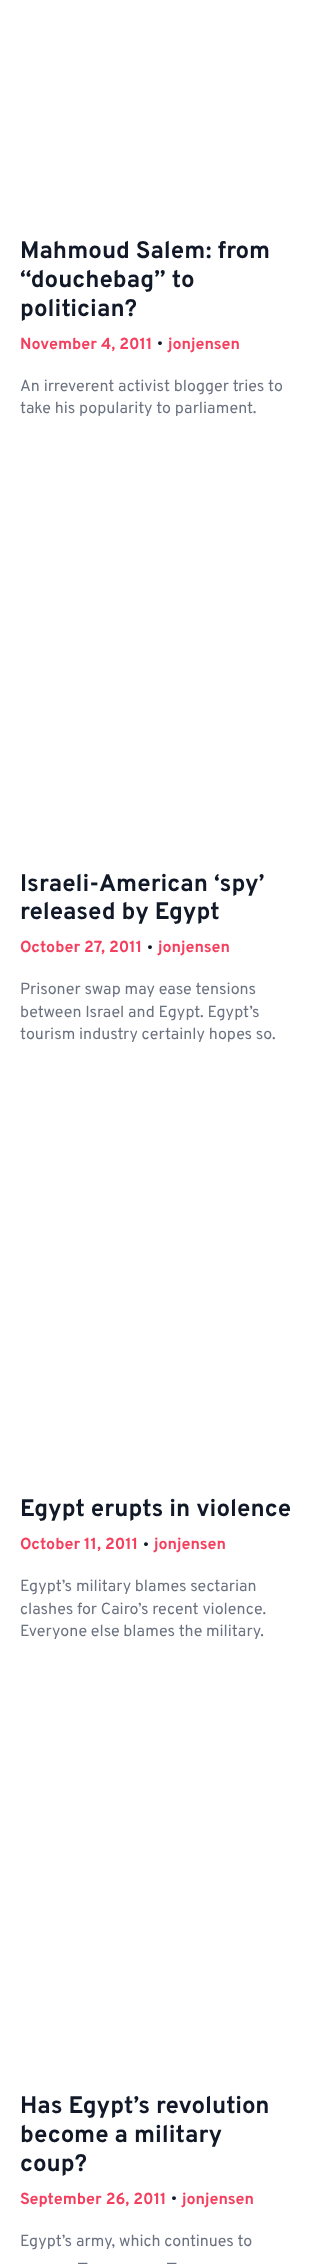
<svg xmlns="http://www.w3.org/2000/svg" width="314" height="2264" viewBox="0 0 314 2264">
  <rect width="100%" height="100%" fill="#fff"/>
  <g font-family="Overpass" font-size="24" font-weight="bold" fill="#111827">
    <text x="20" y="258">Mahmoud Salem: from</text>
    <text x="20" y="287">“douchebag” to</text>
    <text x="20" y="316">politician?</text>
  </g>
  <text x="20" y="349" font-family="Overpass" font-size="16" font-weight="bold" fill="#f43f5e">November 4, 2011</text>
  <text x="157" y="348" font-family="Overpass" font-size="14" font-weight="bold" fill="#111827">•</text>
  <text x="168" y="349" font-family="Overpass" font-size="16" font-weight="bold" fill="#f43f5e">jonjensen</text>
  <g font-family="Overpass" font-size="16" fill="#6b7280">
    <text x="20" y="391">An irreverent activist blogger tries to</text>
    <text x="20" y="413">take his popularity to parliament.</text>
  </g>
  <g font-family="Overpass" font-size="24" font-weight="bold" fill="#111827">
    <text x="20" y="891">Israeli-American ‘spy’</text>
    <text x="20" y="919">released by Egypt</text>
  </g>
  <text x="20" y="952" font-family="Overpass" font-size="16" font-weight="bold" fill="#f43f5e">October 27, 2011</text>
  <text x="147" y="952" font-family="Overpass" font-size="14" font-weight="bold" fill="#111827">•</text>
  <text x="158" y="952" font-family="Overpass" font-size="16" font-weight="bold" fill="#f43f5e">jonjensen</text>
  <g font-family="Overpass" font-size="16" fill="#6b7280">
    <text x="20" y="994">Prisoner swap may ease tensions</text>
    <text x="20" y="1017">between Israel and Egypt. Egypt’s</text>
    <text x="20" y="1039">tourism industry certainly hopes so.</text>
  </g>
  <text x="20" y="1516" font-family="Overpass" font-size="24" font-weight="bold" fill="#111827">Egypt erupts in violence</text>
  <text x="20" y="1549" font-family="Overpass" font-size="16" font-weight="bold" fill="#f43f5e">October 11, 2011</text>
  <text x="143" y="1549" font-family="Overpass" font-size="14" font-weight="bold" fill="#111827">•</text>
  <text x="154" y="1549" font-family="Overpass" font-size="16" font-weight="bold" fill="#f43f5e">jonjensen</text>
  <g font-family="Overpass" font-size="16" fill="#6b7280">
    <text x="20" y="1591">Egypt’s military blames sectarian</text>
    <text x="20" y="1614">clashes for Cairo’s recent violence.</text>
    <text x="20" y="1636">Everyone else blames the military.</text>
  </g>
  <g font-family="Overpass" font-size="24" font-weight="bold" fill="#111827">
    <text x="20" y="2113">Has Egypt’s revolution</text>
    <text x="20" y="2142">become a military</text>
    <text x="20" y="2171">coup?</text>
  </g>
  <text x="20" y="2204" font-family="Overpass" font-size="16" font-weight="bold" fill="#f43f5e">September 26, 2011</text>
  <text x="171" y="2203" font-family="Overpass" font-size="14" font-weight="bold" fill="#111827">•</text>
  <text x="182" y="2204" font-family="Overpass" font-size="16" font-weight="bold" fill="#f43f5e">jonjensen</text>
  <g font-family="Overpass" font-size="16" fill="#6b7280">
    <text x="20" y="2246">Egypt’s army, which continues to</text>
    <text x="78" y="2268">—</text>
    <text x="167" y="2268">—</text>
  </g>
</svg>
